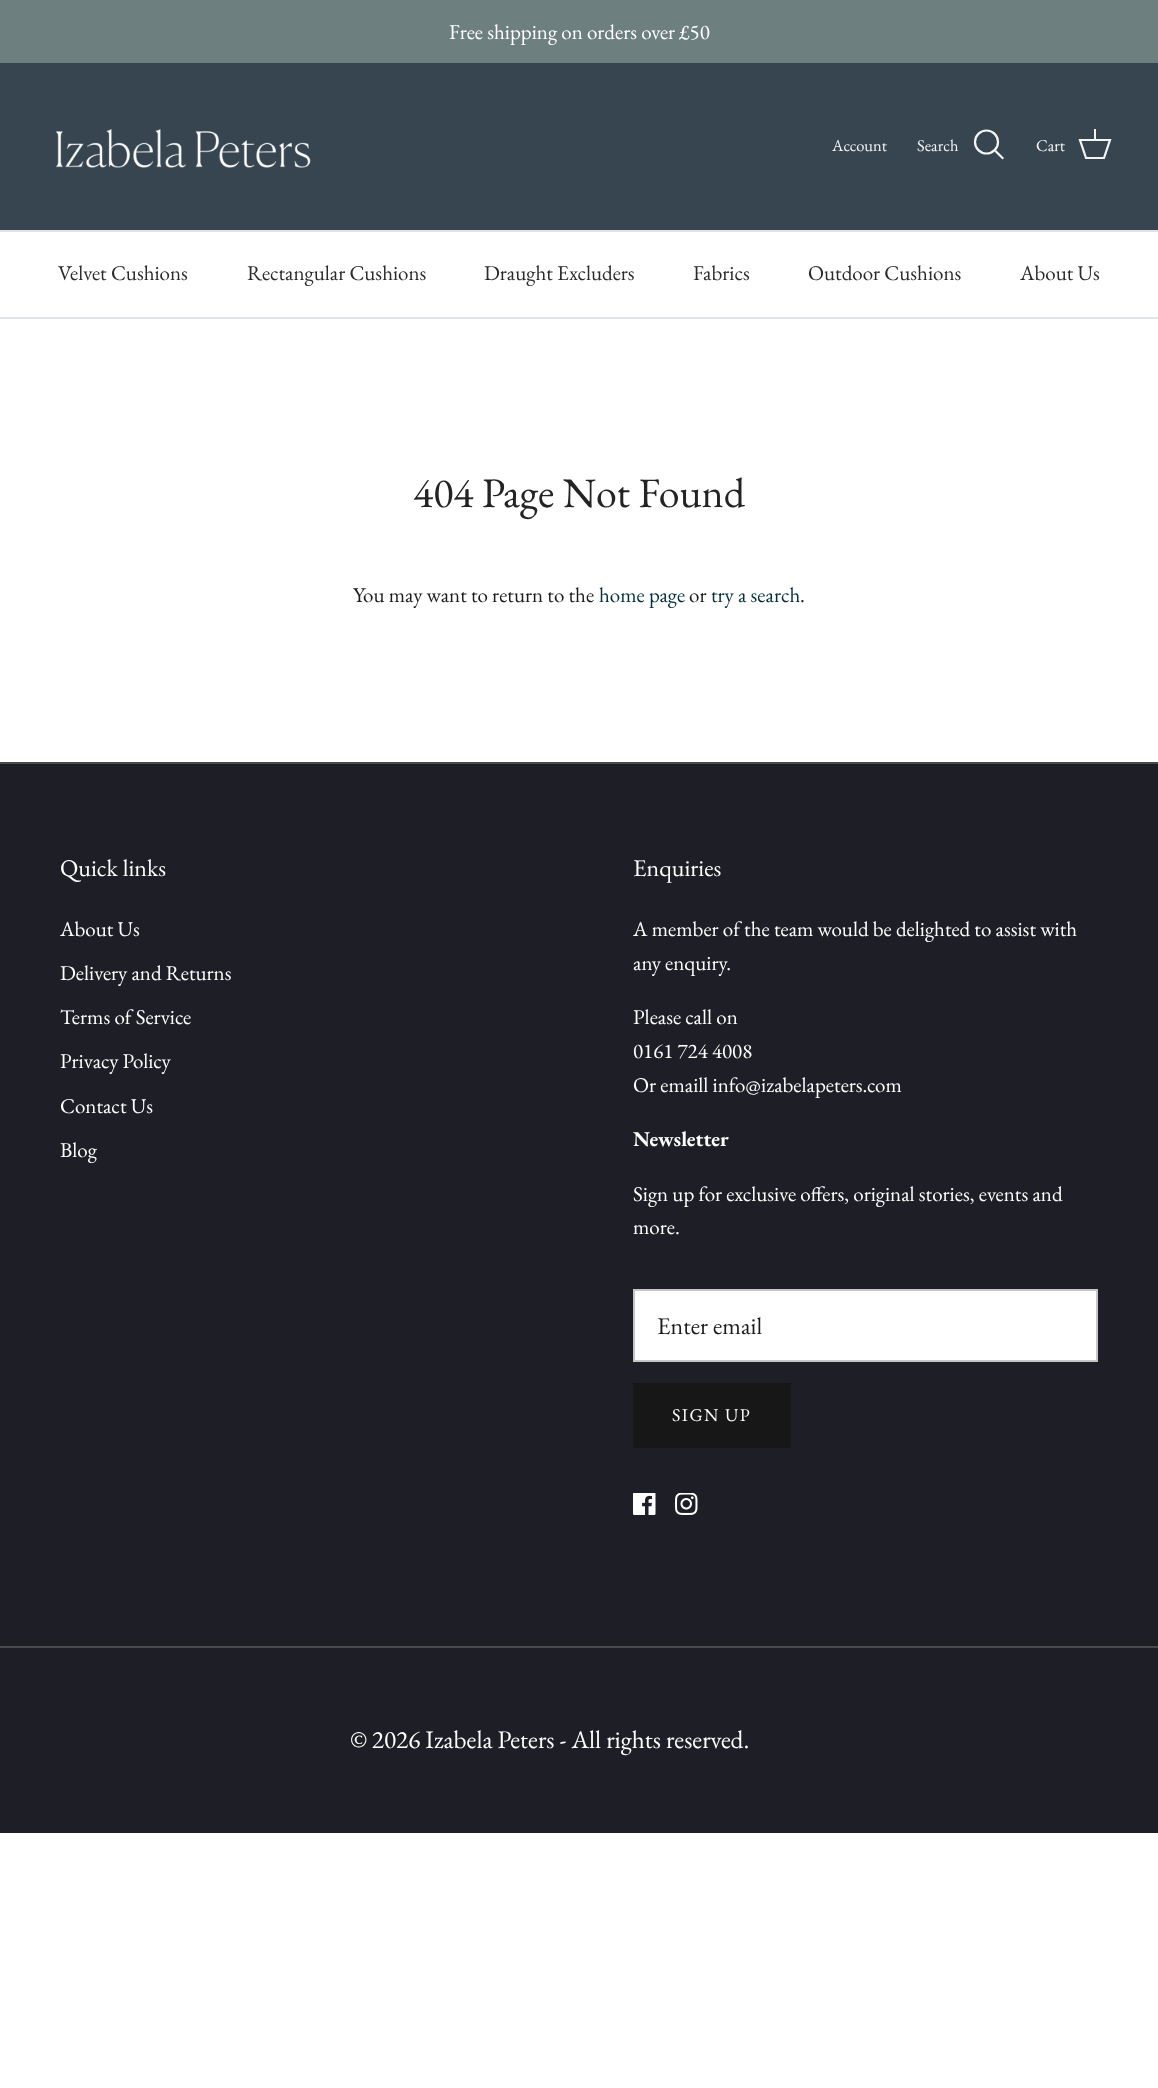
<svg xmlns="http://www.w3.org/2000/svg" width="1158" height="2088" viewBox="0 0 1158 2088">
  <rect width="100%" height="100%" fill="#fff"/>
  <path d="M0 0h1158v63H0z" fill="#6e7f80"/>
  <path d="M0 63h1158v167H0z" fill="#36454f"/>
  <path d="M0 230h1158v2H0z" fill="#dfe3e8"/>
  <image x="55" y="129" width="256" height="39" href="img/1.png"/>
  <circle cx="986.5" cy="142" r="11.5" fill="none" stroke="#f5f5f5" stroke-width="2.2"/>
  <path d="M996 151.5L1002.5 158" fill="none" stroke="#f5f5f5" stroke-width="2.2" stroke-linecap="square"/>
  <path d="M1080 140H1110L1104 158H1086Z" fill="none" stroke="#f5f5f5" stroke-width="2.2"/>
  <path d="M1094 129h2v12H1094z" fill="#f5f5f5"/>
  <path d="M0 317h1158v2H0z" fill="#dfe3e8"/>
  <path d="M0 764h1158v1069H0z" fill="#1e1f26"/>
  <path d="M0 762h1158v2H0z" fill="#4a4a4a"/>
  <path d="M634 1290h463v71H634z" fill="#fff" stroke="#c6c6c6" stroke-width="2"/>
  <path d="M633 1383h158v65H633z" fill="#171717"/>
  <image x="633" y="1493" width="23" height="22" href="img/2.png"/>
  <image x="675" y="1493" width="23" height="22" href="img/3.png"/>
  <path d="M0 1646h1158v2H0z" fill="#4a4a4a"/>
  <text x="449" y="39" font-family="EB Garamond" font-size="21" fill="#fff">Free shipping on orders over £50</text>
  <g font-family="EB Garamond" font-size="16.5" fill="#f5f5f5">
    <text x="832" y="151">Account</text>
    <text x="917" y="151">Search</text>
    <text x="1036" y="151">Cart</text>
  </g>
  <g font-family="EB Garamond" font-size="21" fill="#2a2a2a">
    <text x="58" y="280">Velvet Cushions</text>
    <text x="247" y="280">Rectangular Cushions</text>
    <text x="484" y="280">Draught Excluders</text>
    <text x="693" y="280">Fabrics</text>
    <text x="808" y="280">Outdoor Cushions</text>
    <text x="1020" y="280">About Us</text>
  </g>
  <text x="413" y="507" font-family="EB Garamond" font-size="42" fill="#232323">404 Page Not Found</text>
  <text x="353" y="602" font-family="EB Garamond" font-size="21" fill="#1b1b1b">You may want to return to the</text>
  <text x="599" y="602" font-family="EB Garamond" font-size="21" fill="#002f3c">home page</text>
  <text x="689" y="602" font-family="EB Garamond" font-size="21" fill="#1b1b1b">or</text>
  <text x="711" y="602" font-family="EB Garamond" font-size="21" fill="#002f3c">try a search</text>
  <text x="800" y="602" font-family="EB Garamond" font-size="21" fill="#1b1b1b">.</text>
  <text x="60" y="876" font-family="EB Garamond" font-size="24" fill="#fff">Quick links</text>
  <g font-family="EB Garamond" font-size="21" fill="#fff">
    <text x="60" y="936">About Us</text>
    <text x="60" y="980">Delivery and Returns</text>
    <text x="60" y="1024">Terms of Service</text>
    <text x="60" y="1068">Privacy Policy</text>
    <text x="60" y="1113">Contact Us</text>
    <text x="60" y="1157">Blog</text>
  </g>
  <text x="633" y="876" font-family="EB Garamond" font-size="24" fill="#fff">Enquiries</text>
  <g font-family="EB Garamond" font-size="21" fill="#fff">
    <text x="633" y="936">A member of the team would be delighted to assist with</text>
    <text x="633" y="970">any enquiry.</text>
    <text x="633" y="1024">Please call on</text>
    <text x="633" y="1058">0161 724 4008</text>
    <text x="633" y="1092">Or emaill info@izabelapeters.com</text>
  </g>
  <text x="633" y="1146" font-family="EB Garamond" font-size="21" font-weight="bold" fill="#fff">Newsletter</text>
  <g font-family="EB Garamond" font-size="21" fill="#fff">
    <text x="633" y="1201">Sign up for exclusive offers, original stories, events and</text>
    <text x="633" y="1234">more.</text>
  </g>
  <text x="657" y="1334" font-family="EB Garamond" font-size="24" fill="#1b1b1b">Enter email</text>
  <text x="672" y="1421" font-family="EB Garamond" font-size="18" letter-spacing="1.5" fill="#fff">SIGN UP</text>
  <text x="350" y="1748" font-family="EB Garamond" font-size="25.25" fill="#fff">© 2026 Izabela Peters - All rights reserved.</text>
</svg>
